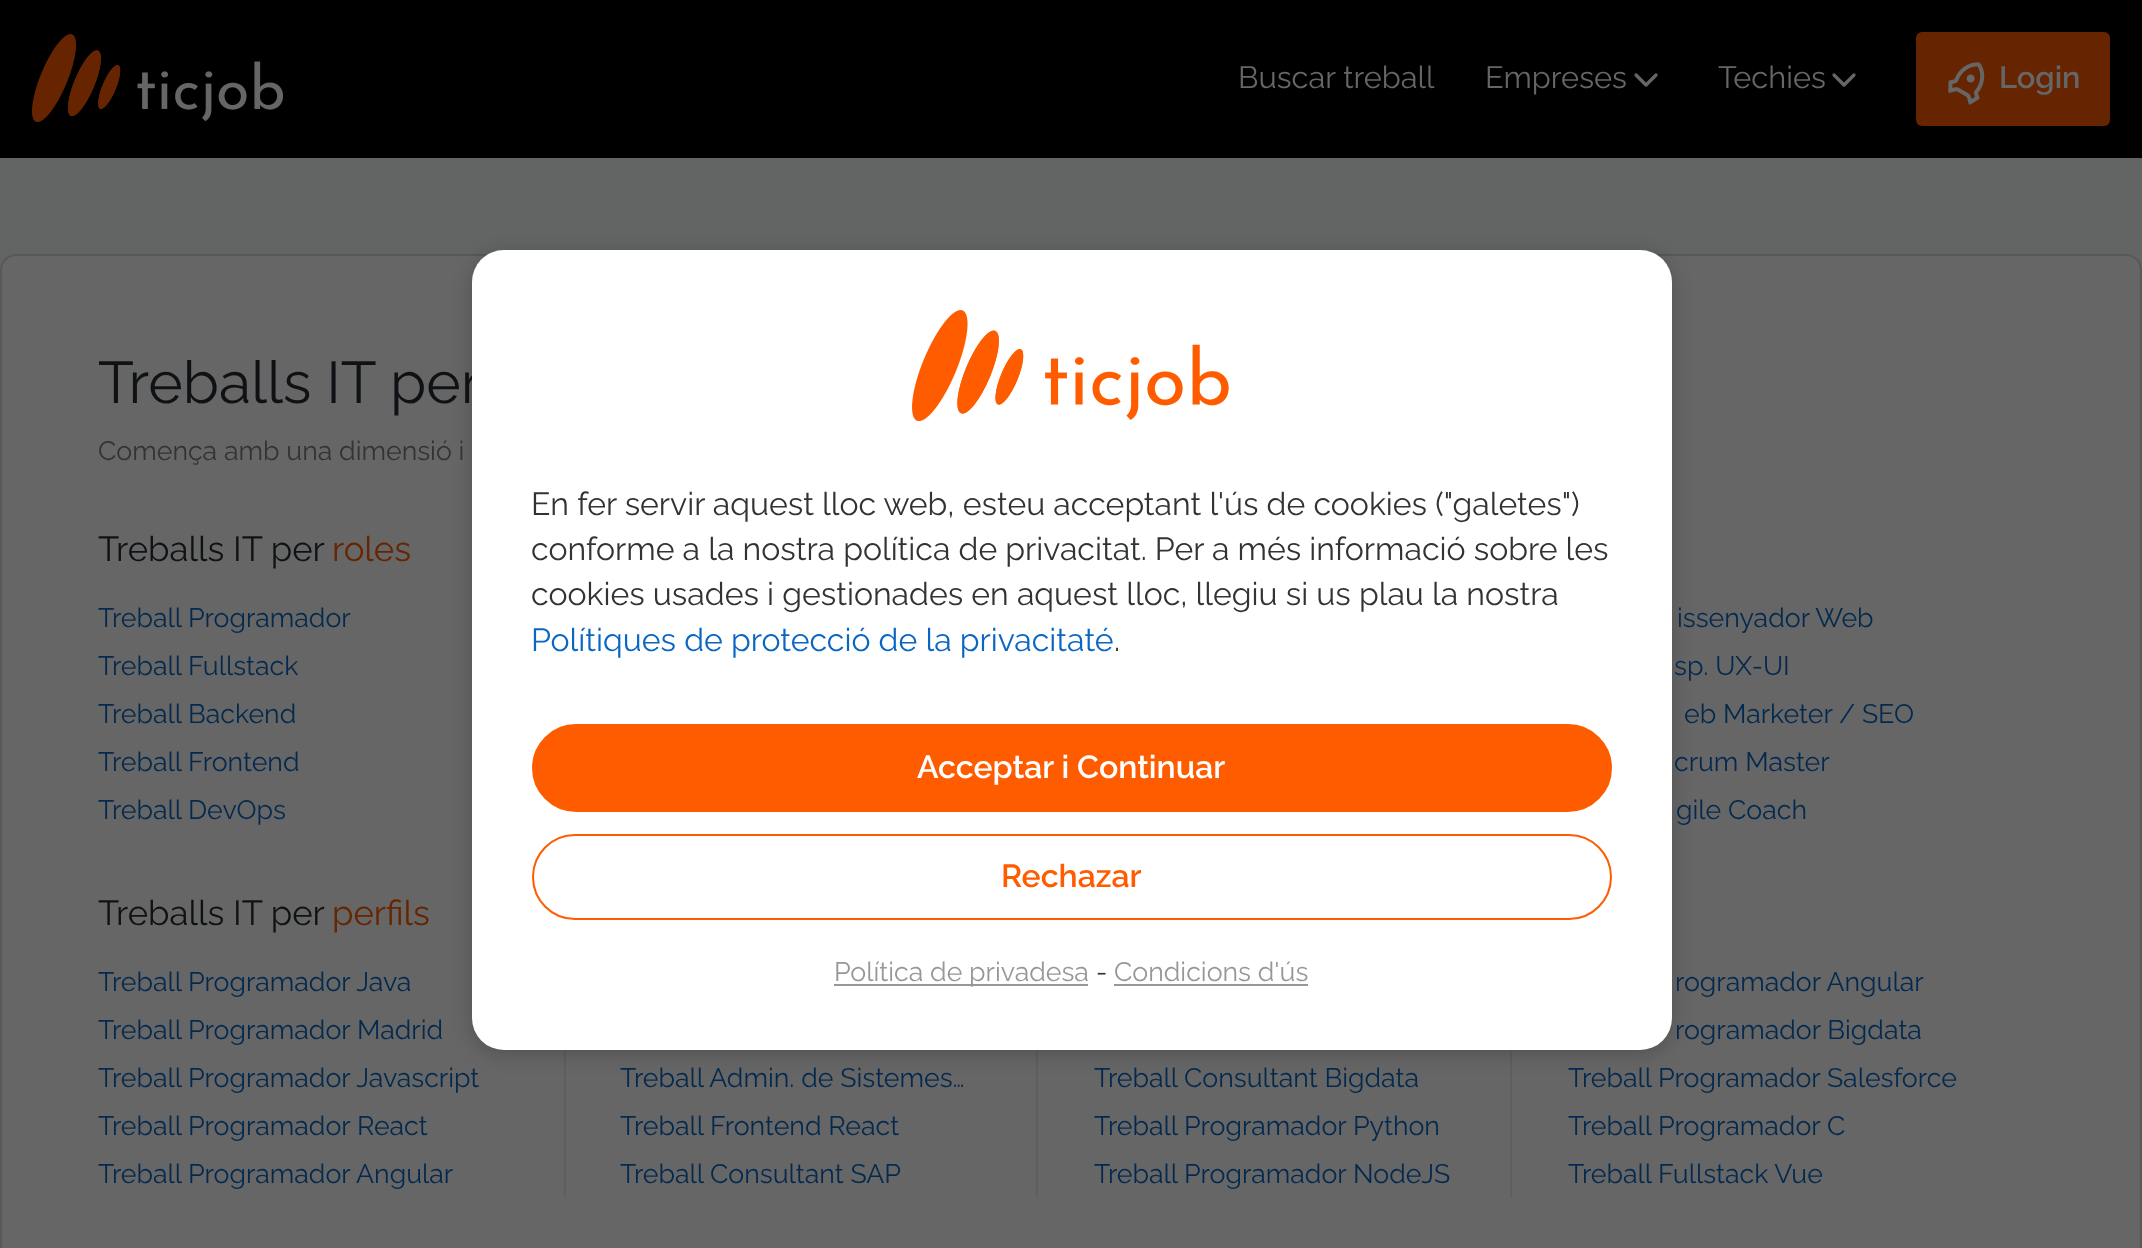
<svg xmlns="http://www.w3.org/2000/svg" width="2142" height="1248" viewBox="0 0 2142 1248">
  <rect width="100%" height="100%" fill="#636464"/>
  <path d="M0 0h2142v158H0z" fill="#000"/>
  <image x="32" y="34" width="252" height="89" href="img/1.png"/>
  <path d="M1636 75L1646 85L1656 75" fill="none" stroke="#666" stroke-width="3.3" stroke-linecap="round" stroke-linejoin="round"/>
  <path d="M1834 75L1844 85L1854 75" fill="none" stroke="#666" stroke-width="3.3" stroke-linecap="round" stroke-linejoin="round"/>
  <rect x="1916" y="32" width="194" height="94" rx="6" fill="#662500"/>
  <image x="1948" y="62" width="37" height="43" href="img/2.png"/>
  <rect x="1" y="255" width="2140" height="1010" rx="15" fill="#666" stroke="#585858" stroke-width="2"/>
  <path d="M564 1050h2v148H564z" fill="#5f5f5f"/>
  <path d="M1036 1050h2v148H1036z" fill="#5f5f5f"/>
  <path d="M1510 1050h2v148H1510z" fill="#5f5f5f"/>
  <rect x="472" y="254" width="1200" height="800" rx="32" fill="#00000033" filter="blur(10px)"/>
  <g font-family="Raleway" font-size="30.75" fill="#666">
    <text x="1238" y="88">Buscar treball</text>
    <text x="1485" y="88">Empreses</text>
    <text x="1718" y="88">Techies</text>
  </g>
  <text x="1999" y="88" font-family="Raleway" font-size="30.75" font-weight="600" fill="#666">Login</text>
  <text x="98" y="403" font-family="Raleway" font-size="58.75" fill="#0f1214">Treballs IT per</text>
  <text x="98" y="460" font-family="Raleway" font-size="26.7" fill="#323434">Comença amb una dimensió i</text>
  <text x="98" y="561" font-family="Raleway" font-size="34.75" fill="#0f1214">Treballs IT per</text>
  <text x="332" y="561" font-family="Raleway" font-size="34.75" fill="#662500">roles</text>
  <g font-family="Raleway" font-size="26.7" fill="#04294e">
    <text x="98" y="627">Treball Programador</text>
    <text x="98" y="675">Treball Fullstack</text>
    <text x="98" y="723">Treball Backend</text>
    <text x="98" y="771">Treball Frontend</text>
    <text x="98" y="819">Treball DevOps</text>
    <text x="1677" y="627">issenyador Web</text>
    <text x="1674" y="675">sp. UX-UI</text>
    <text x="1684" y="723">eb Marketer / SEO</text>
    <text x="1674" y="771">crum Master</text>
    <text x="1676" y="819">gile Coach</text>
  </g>
  <text x="98" y="925" font-family="Raleway" font-size="34.75" fill="#0f1214">Treballs IT per</text>
  <text x="332" y="925" font-family="Raleway" font-size="34.75" fill="#662500">perfils</text>
  <g font-family="Raleway" font-size="26.7" fill="#04294e">
    <text x="98" y="991">Treball Programador Java</text>
    <text x="98" y="1039">Treball Programador Madrid</text>
    <text x="98" y="1087">Treball Programador Javascript</text>
    <text x="98" y="1135">Treball Programador React</text>
    <text x="98" y="1183">Treball Programador Angular</text>
    <text x="620" y="1087">Treball Admin. de Sistemes…</text>
    <text x="620" y="1135">Treball Frontend React</text>
    <text x="620" y="1183">Treball Consultant SAP</text>
    <text x="1094" y="1087">Treball Consultant Bigdata</text>
    <text x="1094" y="1135">Treball Programador Python</text>
    <text x="1094" y="1183">Treball Programador NodeJS</text>
    <text x="1675" y="991">rogramador Angular</text>
    <text x="1675" y="1039">rogramador Bigdata</text>
    <text x="1568" y="1087">Treball Programador Salesforce</text>
    <text x="1568" y="1135">Treball Programador C</text>
    <text x="1568" y="1183">Treball Fullstack Vue</text>
  </g>
  <rect x="472" y="250" width="1200" height="800" rx="32" fill="#fff"/>
  <image x="912" y="310" width="317" height="112" href="img/3.png"/>
  <g font-family="Raleway" font-size="32" fill="#323434">
    <text x="531" y="515">En fer servir aquest lloc web, esteu acceptant l'ús de cookies ("galetes")</text>
    <text x="531" y="560">conforme a la nostra política de privacitat. Per a més informació sobre les</text>
    <text x="531" y="605">cookies usades i gestionades en aquest lloc, llegiu si us plau la nostra</text>
  </g>
  <text x="531" y="651" font-family="Raleway" font-size="32" fill="#0a66c2">Polítiques de protecció de la privacitaté</text>
  <text x="1114" y="651" font-family="Raleway" font-size="32" fill="#323434">.</text>
  <rect x="533" y="725" width="1078" height="86" rx="43" fill="#ff5c00" stroke="#ff5c00" stroke-width="2"/>
  <text x="917" y="778" font-family="Raleway" font-size="32" font-weight="600" fill="#fff">Acceptar i Continuar</text>
  <rect x="533" y="835" width="1078" height="84" rx="42" fill="none" stroke="#ff5c00" stroke-width="2"/>
  <text x="1001" y="887" font-family="Raleway" font-size="32" font-weight="600" fill="#ff5c00">Rechazar</text>
  <path d="M834 984h254v2H834z" fill="#979797"/>
  <text x="834" y="981" font-family="Raleway" font-size="26.7" fill="#979797">Política de privadesa</text>
  <text x="1096" y="981" font-family="Raleway" font-size="26.7" fill="#323434">-</text>
  <text x="1114" y="981" font-family="Raleway" font-size="26.7" fill="#979797">Condicions d'ús</text>
  <path d="M1114 984h194v2H1114z" fill="#979797"/>
</svg>
